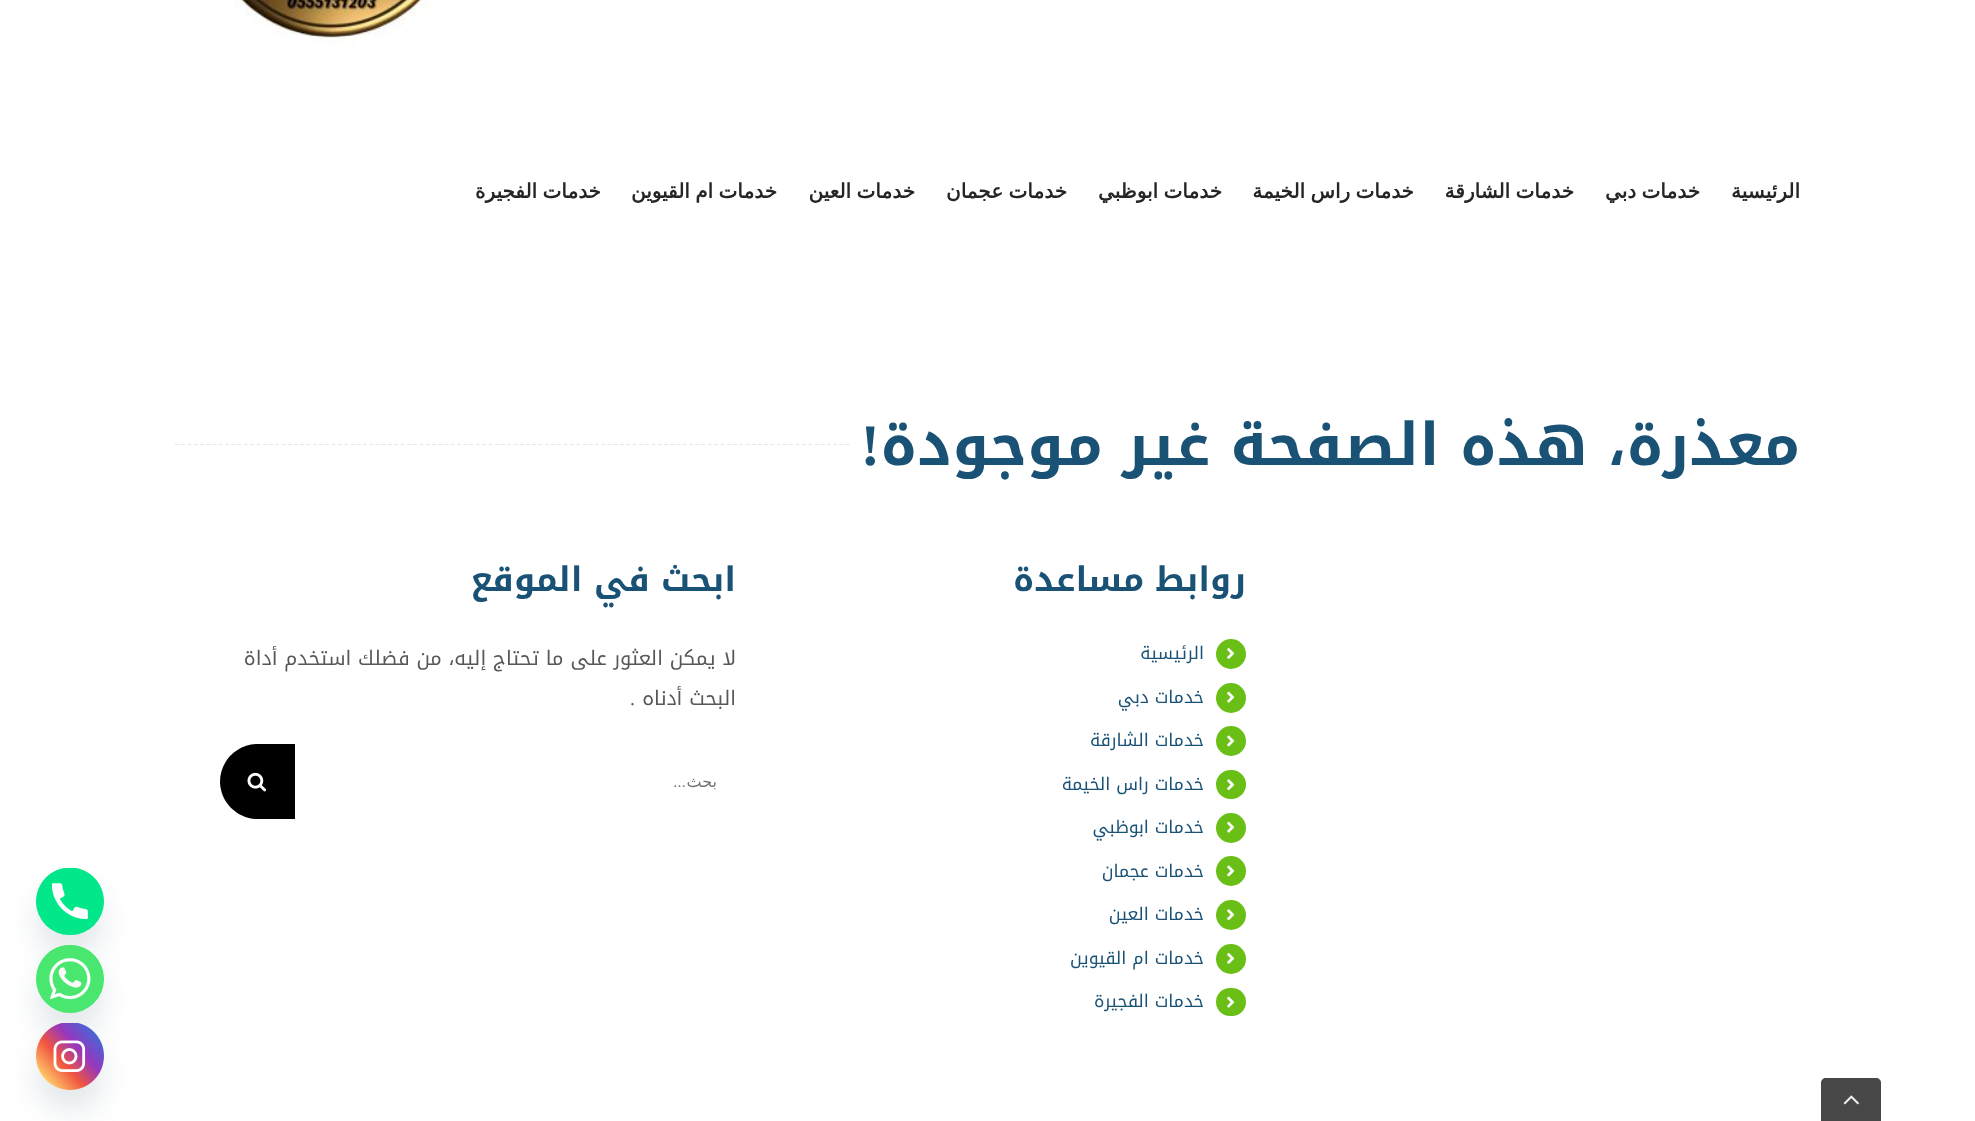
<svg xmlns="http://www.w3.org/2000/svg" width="1975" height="1121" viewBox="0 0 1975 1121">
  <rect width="100%" height="100%" fill="#fff"/>
  <path d="M1826 1078H1876C1879 1078 1881 1080 1881 1083V1121H1821V1083C1821 1080 1823 1078 1826 1078Z" fill="#474747"/>
  <image x="1843" y="1095" width="16" height="10" href="img/1.png"/>
  <image x="235" y="0" width="196" height="45" href="img/2.png"/>
  <path d="M175 444.5H850" fill="none" stroke="#e5e5e5" stroke-width="1.2" stroke-dasharray="3.75 2.52"/>
  <circle cx="1231" cy="654" r="15" fill="#6abf16"/>
  <image x="1227" y="648" width="8" height="11" href="img/3.png"/>
  <circle cx="1231" cy="698" r="15" fill="#6abf16"/>
  <image x="1227" y="691" width="8" height="12" href="img/4.png"/>
  <circle cx="1231" cy="741" r="15" fill="#6abf16"/>
  <image x="1227" y="735" width="8" height="12" href="img/5.png"/>
  <rect x="1216" y="770" width="30" height="29" rx="14.5" fill="#6abf16"/>
  <image x="1227" y="779" width="8" height="12" href="img/6.png"/>
  <circle cx="1231" cy="828" r="15" fill="#6abf16"/>
  <image x="1227" y="821" width="8" height="12" href="img/4.png"/>
  <circle cx="1231" cy="871" r="15" fill="#6abf16"/>
  <image x="1227" y="865" width="8" height="12" href="img/5.png"/>
  <circle cx="1231" cy="915" r="15" fill="#6abf16"/>
  <image x="1227" y="909" width="8" height="12" href="img/6.png"/>
  <circle cx="1231" cy="959" r="15" fill="#6abf16"/>
  <image x="1227" y="953" width="8" height="11" href="img/3.png"/>
  <rect x="1216" y="988" width="30" height="28" rx="14" fill="#6abf16"/>
  <image x="1227" y="996" width="8" height="12" href="img/4.png"/>
  <path d="M257.5 744H295V819H257.5C237 819 220 802 220 781.5C220 761 237 744 257.5 744Z" fill="#000"/>
  <image x="247" y="772" width="19" height="20" href="img/7.png"/>
  <rect x="36" y="888" width="68" height="67" rx="33.5" fill="#49687e29" filter="blur(15px)"/>
  <rect x="36" y="868" width="68" height="67" rx="33.5" fill="#03e78b"/>
  <image x="36" y="868" width="68" height="67" href="img/8.png"/>
  <rect x="36" y="965" width="68" height="68" rx="34" fill="#49687e29" filter="blur(15px)"/>
  <circle cx="70" cy="979" r="34" fill="#49e670"/>
  <image x="36" y="945" width="68" height="55" href="img/9.png"/>
  <rect x="36" y="1043" width="68" height="67" rx="33.5" fill="#49687e29" filter="blur(15px)"/>
  <rect x="36" y="1023" width="68" height="67" rx="33.5" fill="#fff"/>
  <image x="36" y="1023" width="68" height="67" href="img/10.png"/>
  <g font-family="DejaVu Sans" font-size="20" font-weight="bold" direction="rtl" fill="#252525">
    <text x="1800" y="198">الرئيسية</text>
    <text x="1700" y="198" word-spacing="-1">خدمات دبي</text>
    <text x="1574" y="198" word-spacing="-1">خدمات الشارقة</text>
    <text x="1414" y="198" word-spacing="-1">خدمات راس الخيمة</text>
    <text x="1222" y="198" word-spacing="-1">خدمات ابوظبي</text>
    <text x="1067" y="198" word-spacing="-1">خدمات عجمان</text>
    <text x="915" y="198" word-spacing="-1">خدمات العين</text>
    <text x="777" y="198" word-spacing="-1">خدمات ام القيوين</text>
    <text x="601" y="198" word-spacing="-1">خدمات الفجيرة</text>
  </g>
  <text x="1800" y="465" font-family="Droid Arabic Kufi" font-size="58.75" font-weight="bold" direction="rtl" fill="#1a5276">معذرة، هذه الصفحة غير موجودة</text>
  <text x="880" y="465" font-family="Liberation Serif" font-size="58.75" font-weight="bold" direction="rtl" fill="#1a5276">!</text>
  <text x="1246" y="591" font-family="Droid Arabic Kufi" font-size="33.75" font-weight="bold" direction="rtl" fill="#1a5276">روابط مساعدة</text>
  <g font-family="Droid Arabic Kufi" font-size="17.5" direction="rtl" fill="#1a5276">
    <text x="1204" y="659">الرئيسية</text>
    <text x="1204" y="703">خدمات دبي</text>
    <text x="1204" y="746">خدمات الشارقة</text>
    <text x="1204" y="790">خدمات راس الخيمة</text>
    <text x="1204" y="833">خدمات ابوظبي</text>
    <text x="1204" y="877">خدمات عجمان</text>
    <text x="1204" y="920">خدمات العين</text>
    <text x="1204" y="964">خدمات ام القيوين</text>
    <text x="1204" y="1007">خدمات الفجيرة</text>
  </g>
  <text x="736" y="591" font-family="Droid Arabic Kufi" font-size="33.75" font-weight="bold" direction="rtl" fill="#1a5276">ابحث في الموقع</text>
  <g font-family="Droid Arabic Kufi" font-size="20" direction="rtl" fill="#585858">
    <text x="736" y="665">لا يمكن العثور على ما تحتاج إليه، من فضلك استخدم أداة</text>
    <text x="736" y="705">البحث أدناه</text>
  </g>
  <text x="635" y="705" font-family="Liberation Serif" font-size="20" direction="rtl" fill="#585858">.</text>
  <text x="717" y="787" font-family="DejaVu Sans" font-size="16" direction="rtl" fill="#747474">بحث</text>
  <text x="686" y="787" font-family="Roboto" font-size="16" direction="rtl" fill="#747474">...</text>
</svg>
